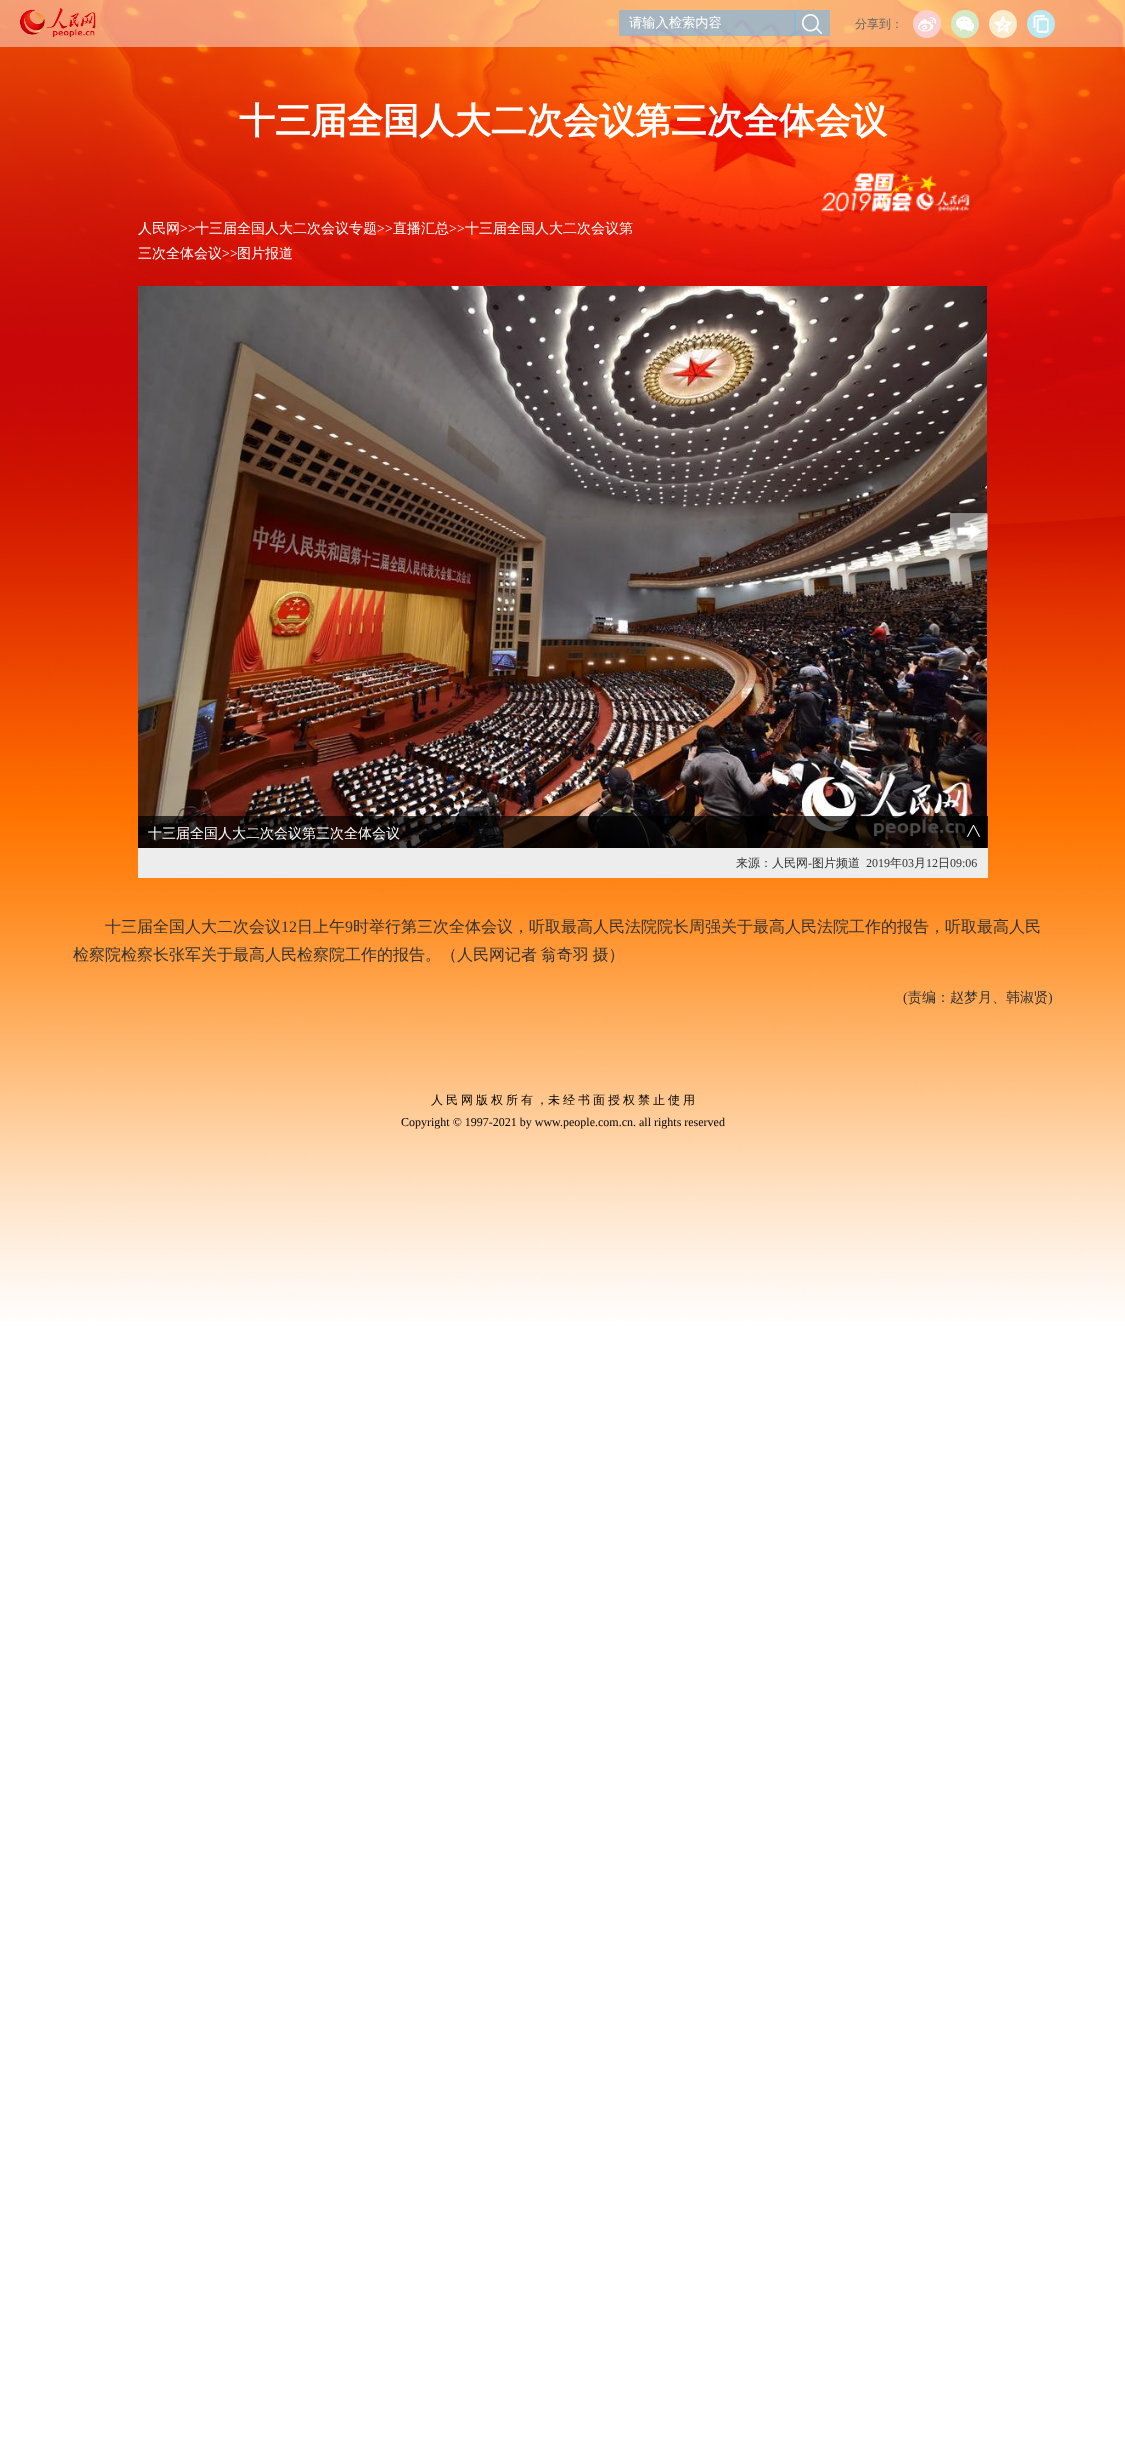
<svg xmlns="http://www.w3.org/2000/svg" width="1125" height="2451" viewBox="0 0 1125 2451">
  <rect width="100%" height="100%" fill="#fff"/>
  <image x="0" y="0" width="1125" height="1321" href="img/1.png"/>
  <path d="M0 0h1125v47H0z" fill="#ffffff73"/>
  <image x="20" y="8" width="76" height="29" href="img/2.png"/>
  <path d="M619 10h177v26H619z" fill="#82b7dfb3"/>
  <image x="794" y="10" width="36" height="26" href="img/3.png"/>
  <circle cx="927" cy="24" r="14" fill="#fccfcf"/>
  <image x="918" y="17" width="18" height="15" href="img/4.png"/>
  <circle cx="965" cy="24" r="14" fill="#d6e9c6"/>
  <image x="956" y="16" width="18" height="16" href="img/5.png"/>
  <circle cx="1003" cy="24" r="14" fill="#faebcc"/>
  <image x="994" y="16" width="18" height="17" href="img/6.png"/>
  <circle cx="1041" cy="24" r="14" fill="#bce8f1"/>
  <image x="1033" y="15" width="16" height="18" href="img/7.png"/>
  <image x="820" y="173" width="150" height="39" href="img/8.png"/>
  <image x="138" y="286" width="849" height="562" href="img/9.png"/>
  <image x="950" y="513" width="38" height="36" href="img/10.png"/>
  <path d="M138 816h850v32H138z" fill="#000000b3"/>
  <image x="958" y="816" width="30" height="30" href="img/11.png"/>
  <path d="M138 848h850v30H138z" fill="#ededed"/>
  <text x="629" y="27" font-family="WenQuanYi Zen Hei" font-size="13.25" font-weight="500" fill="#fff">请输入检索内容</text>
  <text x="855" y="28" font-family="WenQuanYi Zen Hei" font-size="12" font-weight="500" fill="#666">分享到：</text>
  <text x="239" y="133" font-family="WenQuanYi Zen Hei" font-size="36" font-weight="bold" fill="#fff">十三届全国人大二次会议第三次全体会议</text>
  <text x="138" y="233" font-family="WenQuanYi Zen Hei" font-size="14" font-weight="500" fill="#fff">人民网</text>
  <text x="180" y="233" font-family="Liberation Serif" font-size="14" fill="#fff">&gt;&gt;</text>
  <text x="195" y="233" font-family="WenQuanYi Zen Hei" font-size="14" font-weight="500" fill="#fff">十三届全国人大二次会议专题</text>
  <text x="377" y="233" font-family="Liberation Serif" font-size="14" fill="#fff">&gt;&gt;</text>
  <text x="393" y="233" font-family="WenQuanYi Zen Hei" font-size="14" font-weight="500" fill="#fff">直播汇总</text>
  <text x="449" y="233" font-family="Liberation Serif" font-size="14" fill="#fff">&gt;&gt;</text>
  <g font-family="WenQuanYi Zen Hei" font-size="14" font-weight="500" fill="#fff">
    <text x="465" y="233">十三届全国人大二次会议第</text>
    <text x="138" y="258">三次全体会议</text>
  </g>
  <text x="222" y="258" font-family="Liberation Serif" font-size="14" fill="#fff">&gt;&gt;</text>
  <g font-family="WenQuanYi Zen Hei" font-size="14" font-weight="500" fill="#fff">
    <text x="237" y="258">图片报道</text>
    <text x="148" y="838">十三届全国人大二次会议第三次全体会议</text>
  </g>
  <text x="736" y="867" font-family="WenQuanYi Zen Hei" font-size="12" font-weight="500" fill="#333">来源：人民网</text>
  <text x="808" y="867" font-family="Liberation Serif" font-size="12" fill="#333">-</text>
  <text x="812" y="867" font-family="WenQuanYi Zen Hei" font-size="12" font-weight="500" fill="#333">图片频道</text>
  <text x="866" y="867" font-family="Liberation Serif" font-size="12" fill="#333">2019</text>
  <text x="890" y="867" font-family="WenQuanYi Zen Hei" font-size="12" font-weight="500" fill="#333">年</text>
  <text x="902" y="867" font-family="Liberation Serif" font-size="12" fill="#333">03</text>
  <text x="914" y="867" font-family="WenQuanYi Zen Hei" font-size="12" font-weight="500" fill="#333">月</text>
  <text x="926" y="867" font-family="Liberation Serif" font-size="12" fill="#333">12</text>
  <text x="938" y="867" font-family="WenQuanYi Zen Hei" font-size="12" font-weight="500" fill="#333">日</text>
  <text x="950" y="867" font-family="Liberation Serif" font-size="12" fill="#333">09:06</text>
  <text x="105" y="932" font-family="WenQuanYi Zen Hei" font-size="16" font-weight="500" fill="#333">十三届全国人大二次会议</text>
  <text x="281" y="932" font-family="Liberation Serif" font-size="16" fill="#333">12</text>
  <text x="297" y="932" font-family="WenQuanYi Zen Hei" font-size="16" font-weight="500" fill="#333">日上午</text>
  <text x="345" y="932" font-family="Liberation Serif" font-size="16" fill="#333">9</text>
  <g font-family="WenQuanYi Zen Hei" font-size="16" font-weight="500" fill="#333">
    <text x="353" y="932">时举行第三次全体会议，听取最高人民法院院长周强关于最高人民法院工作的报告，听取最高人民</text>
    <text x="73" y="960" word-spacing="-1">检察院检察长张军关于最高人民检察院工作的报告。（人民网记者 翁奇羽 摄）</text>
  </g>
  <text x="903" y="1002" font-family="Liberation Serif" font-size="14" fill="#333">(</text>
  <text x="908" y="1002" font-family="WenQuanYi Zen Hei" font-size="14" font-weight="500" fill="#333">责编：赵梦月、韩淑贤</text>
  <text x="1048" y="1002" font-family="Liberation Serif" font-size="14" fill="#333">)</text>
  <text x="431" y="1104" word-spacing="-0.6" font-family="WenQuanYi Zen Hei" font-size="12" font-weight="500" fill="#000">人 民 网 版 权 所 有 ，未 经 书 面 授 权 禁 止 使 用</text>
  <text x="401" y="1126" font-family="Liberation Serif" font-size="12" fill="#000">Copyright © 1997-2021 by www.people.com.cn. all rights reserved</text>
</svg>
